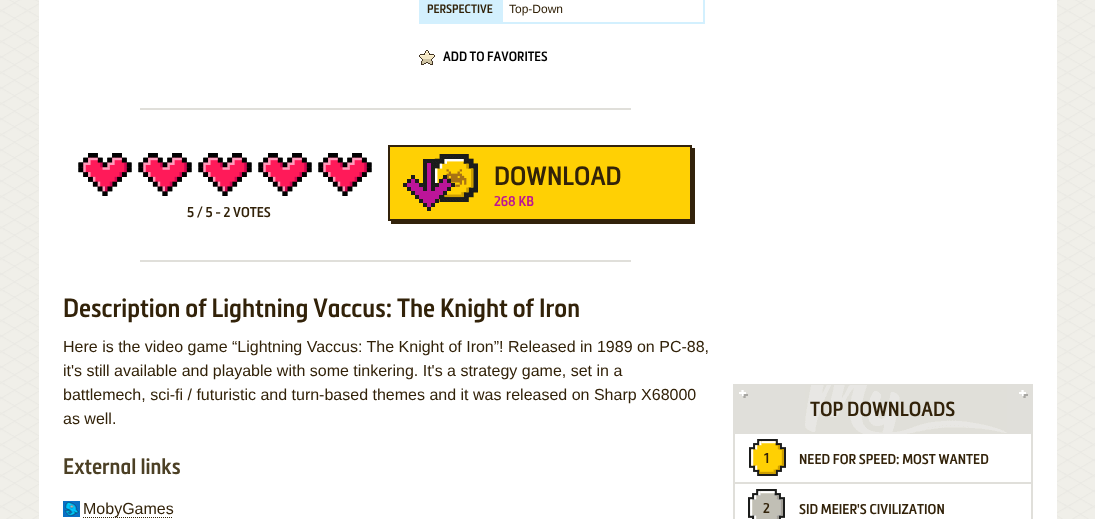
<svg xmlns="http://www.w3.org/2000/svg" width="1095" height="519" viewBox="0 0 1095 519">
  <rect width="100%" height="100%" fill="#fff"/>
  <image x="0" y="0" width="1095" height="519" href="img/1.png"/>
  <path d="M39 0h1018v519H39z" fill="#fff"/>
  <path d="M420 -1h284v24H420z" fill="none" stroke="#d3f0fe" stroke-width="2"/>
  <path d="M421 0h82v22H421z" fill="#d3f0fe"/>
  <image x="419" y="50" width="16" height="15" href="img/2.png"/>
  <path d="M140 108h491v2H140z" fill="#e0dfda"/>
  <path d="M391 221V224H695V148H692V221Z" fill="#32220b"/>
  <path d="M389 146h302v74H389z" fill="#ffd004" stroke="#32220b" stroke-width="2"/>
  <image x="403" y="154" width="75" height="57" href="img/3.png"/>
  <image x="78" y="153" width="294" height="43" href="img/4.png"/>
  <image x="78" y="153" width="294" height="43" href="img/5.png"/>
  <path d="M140 260h491v2H140z" fill="#e0dfda"/>
  <image x="63" y="501" width="17" height="16" href="img/6.png"/>
  <path d="M83 517.5H173" fill="none" stroke="#32270d" stroke-dasharray="1 1"/>
  <path d="M733 384h300v50H733z" fill="#e0dfda"/>
  <image x="805" y="385" width="202" height="49" href="img/7.png"/>
  <image x="739" y="390" width="9" height="8" href="img/8.png"/>
  <image x="1019" y="390" width="9" height="8" href="img/8.png"/>
  <path d="M1031 434h2v85H1031z" fill="#e0dfda"/>
  <path d="M733 434h2v85H733z" fill="#e0dfda"/>
  <path d="M735 482h296v2H735z" fill="#e0dfda"/>
  <image x="749" y="439" width="37" height="37" href="img/9.png"/>
  <image x="748" y="489" width="37" height="30" href="img/10.png"/>
  <text x="427" y="13" font-family="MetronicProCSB" font-size="12" fill="#322209">PERSPECTIVE</text>
  <text x="509" y="13" font-family="Liberation Sans" font-size="12" fill="#322209">Top-Down</text>
  <text x="443" y="61" font-family="MetronicProCSB" font-size="13.25" fill="#000">ADD TO FAVORITES</text>
  <text x="494" y="185" font-family="MetronicProCSB" font-size="26" fill="#322209">DOWNLOAD</text>
  <text x="494" y="206" font-family="MetronicProCSB" font-size="14" fill="#bc1596">268 KB</text>
  <text x="187" y="217" font-family="MetronicProCSB" font-size="14" fill="#322209">5 / 5 - 2 VOTES</text>
  <text x="63" y="317" font-family="MetronicProCSB" font-size="26" fill="#322209">Description of Lightning Vaccus: The Knight of Iron</text>
  <g font-family="Liberation Sans" font-size="16" fill="#322209">
    <text x="63" y="352">Here is the video game “Lightning Vaccus: The Knight of Iron”! Released in 1989 on PC-88,</text>
    <text x="63" y="376">it's still available and playable with some tinkering. It's a strategy game, set in a</text>
    <text x="63" y="400">battlemech, sci-fi / futuristic and turn-based themes and it was released on Sharp X68000</text>
    <text x="63" y="424">as well.</text>
  </g>
  <text x="63" y="474" font-family="MetronicProCSB" font-size="22" fill="#4c4025">External links</text>
  <text x="83" y="514" font-family="Liberation Sans" font-size="16" fill="#322209">MobyGames</text>
  <text x="810" y="416" font-family="MetronicProCSB" font-size="20" fill="#322209">TOP DOWNLOADS</text>
  <g font-family="MetronicProCSB" font-size="14" fill="#322209">
    <text x="764" y="463">1</text>
    <text x="799" y="464">NEED FOR SPEED: MOST WANTED</text>
    <text x="763" y="513">2</text>
    <text x="799" y="514">SID MEIER'S CIVILIZATION</text>
  </g>
</svg>
